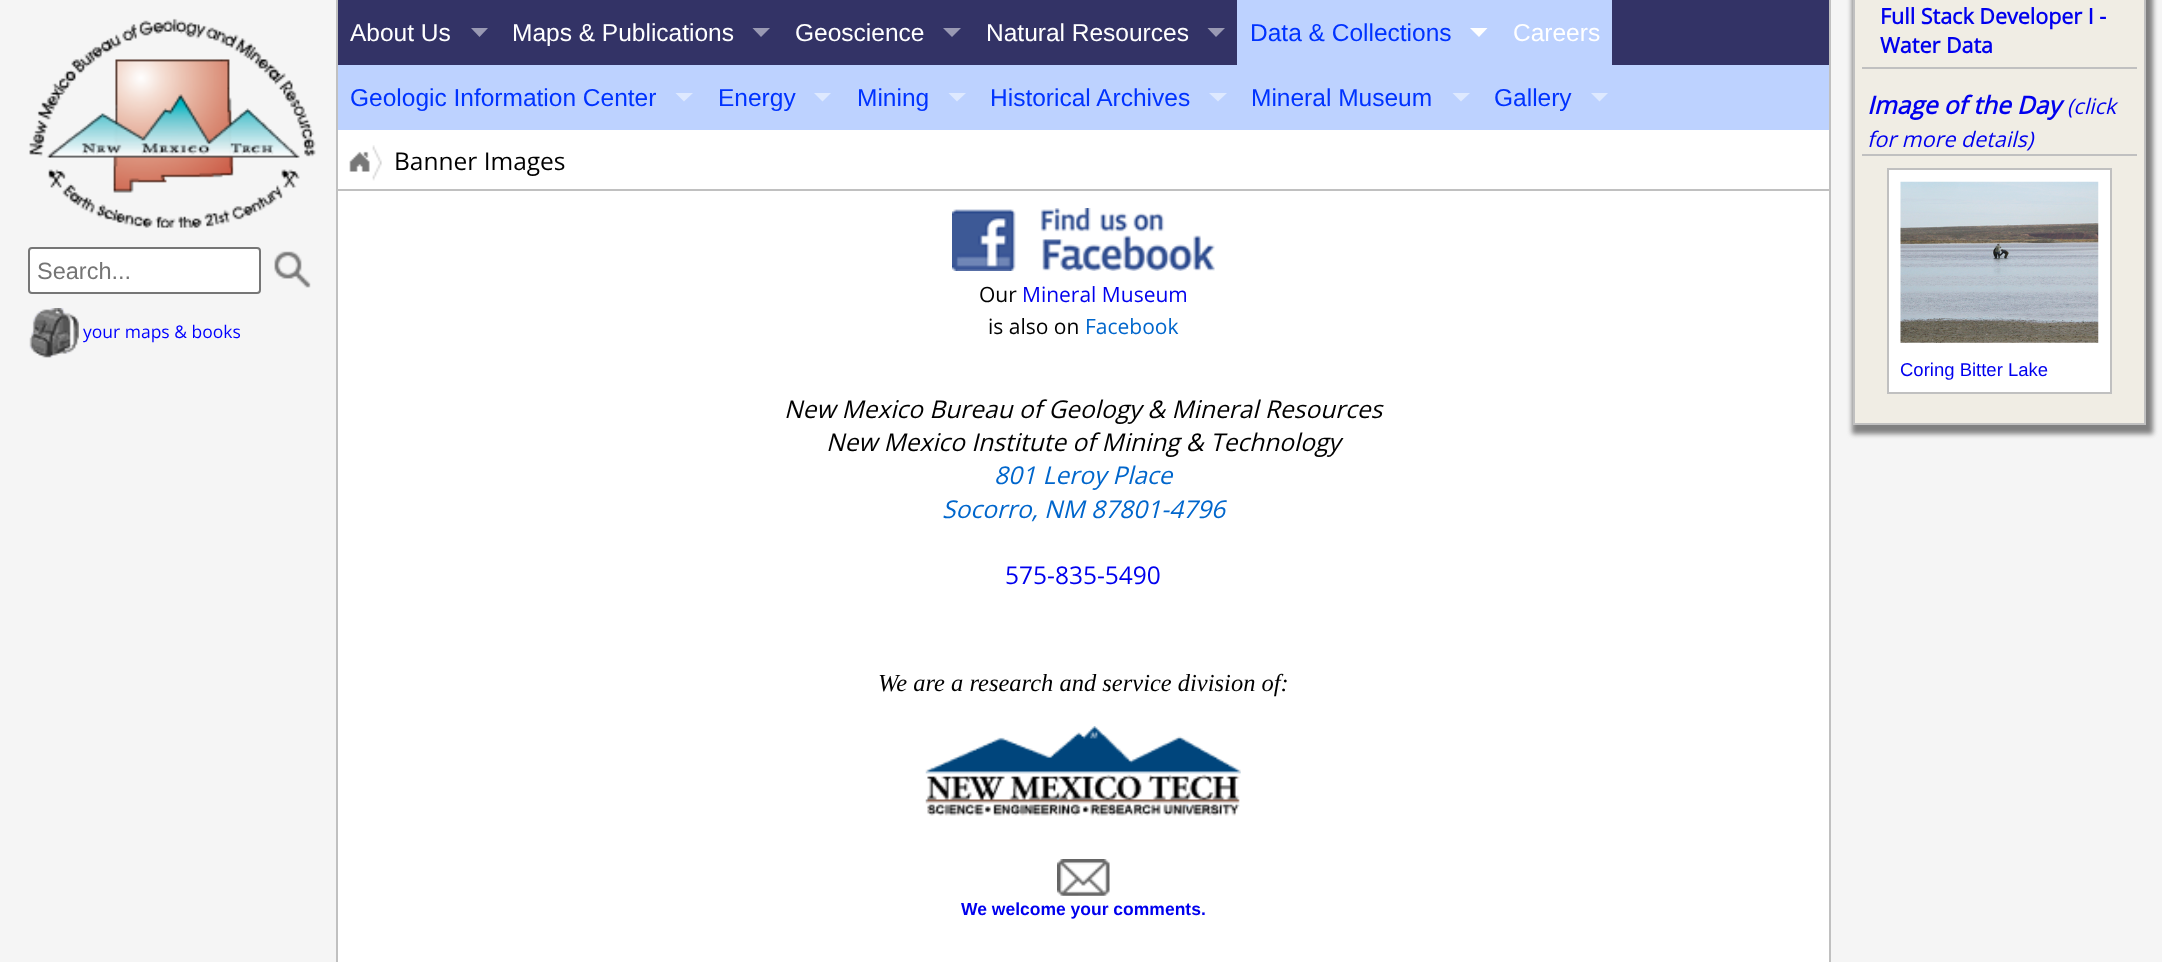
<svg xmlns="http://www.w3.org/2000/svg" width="2162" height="962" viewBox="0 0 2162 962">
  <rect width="100%" height="100%" fill="#f5f5f5"/>
  <path d="M338 130h1491v832H338z" fill="#fff"/>
  <path d="M1829 0h2v962H1829z" fill="#c0c0c0"/>
  <path d="M336 0h2v962H336z" fill="#c0c0c0"/>
  <path d="M1852 -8h301v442H1852z" fill="#808080" filter="blur(2.5px)"/>
  <path d="M1854 -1h291v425H1854z" fill="#f0ede4" stroke="#c0c0c0" stroke-width="2"/>
  <path d="M1862 67h275v2H1862z" fill="#c0c0c0"/>
  <path d="M1862 154h275v2H1862z" fill="#c0c0c0"/>
  <path d="M1888 169h223v224H1888z" fill="#fff" stroke="#c0c0c0" stroke-width="2"/>
  <image x="1900" y="181" width="199" height="162" href="img/1.png"/>
  <image x="952" y="208" width="263" height="63" href="img/2.png"/>
  <image x="925" y="726" width="316" height="90" href="img/3.png"/>
  <image x="1057" y="859" width="53" height="37" href="img/4.png"/>
  <image x="29" y="18" width="287" height="210" href="img/5.png"/>
  <path d="M338 0h1491v65H338z" fill="#336"/>
  <path d="M471 28H488L479.5 37Z" fill="#9999b3"/>
  <path d="M1237 0h375v65H1237z" fill="#bdd2ff"/>
  <path d="M1470 28H1487.5L1479 37Z" fill="#fff"/>
  <path d="M338 65h1491v65H338z" fill="#bdd2ff"/>
  <path d="M675.5 93H693L684 101.5Z" fill="#dee9ff"/>
  <path d="M814 93H831L822.5 101.5Z" fill="#dee9ff"/>
  <path d="M948.5 93H966L957 101.5Z" fill="#dee9ff"/>
  <path d="M1209 93H1227L1218 101.5Z" fill="#dee9ff"/>
  <path d="M1452.5 93H1470L1461 101.5Z" fill="#dee9ff"/>
  <path d="M1591 93H1608L1599.5 101.5Z" fill="#dee9ff"/>
  <path d="M752.5 28H770L761 37Z" fill="#9999b3"/>
  <path d="M943 28H961L952 37Z" fill="#9999b3"/>
  <path d="M1207.5 28H1225L1216 37Z" fill="#9999b3"/>
  <path d="M338 189h1491v2H338z" fill="#c0c0c0"/>
  <image x="372" y="145" width="10" height="36" href="img/6.png"/>
  <image x="349" y="151" width="21" height="21" href="img/7.png"/>
  <rect x="29" y="248" width="231" height="45" rx="3" fill="#fff" stroke="#767676" stroke-width="2"/>
  <image x="274" y="251" width="37" height="37" href="img/8.png"/>
  <image x="29" y="308" width="50" height="50" href="img/9.png"/>
  <g font-family="Open Sans" font-size="21.5" font-weight="bold" fill="#00e">
    <text x="1880" y="24">Full Stack Developer I -</text>
    <text x="1880" y="53">Water Data</text>
  </g>
  <text x="1867" y="114" font-family="Open Sans" font-size="24.5" font-weight="bold" font-style="italic" fill="#00e">Image of the Day</text>
  <g font-family="Open Sans" font-size="21.5" font-style="italic" fill="#00e">
    <text x="2067" y="114">(click</text>
    <text x="1867" y="147">for more details)</text>
  </g>
  <text x="1900" y="376" font-family="Liberation Sans" font-size="18.5" fill="#00e">Coring Bitter Lake</text>
  <text x="979" y="302" font-family="Open Sans" font-size="21" fill="#000">Our</text>
  <text x="1022" y="302" font-family="Open Sans" font-size="21" fill="#00e">Mineral Museum</text>
  <text x="988" y="334" font-family="Open Sans" font-size="21" fill="#000">is also on</text>
  <text x="1085" y="334" font-family="Open Sans" font-size="21" fill="#06c">Facebook</text>
  <g font-family="Open Sans" font-size="24.5" font-style="italic" fill="#000">
    <text x="784" y="418">New Mexico Bureau of Geology &amp; Mineral Resources</text>
    <text x="826" y="451">New Mexico Institute of Mining &amp; Technology</text>
  </g>
  <g font-family="Open Sans" font-size="24.5" font-style="italic" fill="#06c">
    <text x="994" y="484">801 Leroy Place</text>
    <text x="942" y="518">Socorro, NM 87801-4796</text>
  </g>
  <text x="1005" y="584" font-family="Open Sans" font-size="24.5" fill="#00e">575-835-5490</text>
  <text x="878" y="691" font-family="Liberation Serif" font-size="24.5" font-style="italic" fill="#000">We are a research and service division of:</text>
  <text x="961" y="915" font-family="Liberation Sans" font-size="17.5" font-weight="bold" fill="#00e">We welcome your comments.</text>
  <text x="350" y="41" font-family="Liberation Sans" font-size="24.5" fill="#fff">About Us</text>
  <g font-family="Liberation Sans" font-size="24.5" fill="#03f">
    <text x="1250" y="41">Data &amp; Collections</text>
    <text x="350" y="106">Geologic Information Center</text>
    <text x="718" y="106">Energy</text>
    <text x="857" y="106">Mining</text>
    <text x="990" y="106">Historical Archives</text>
    <text x="1251" y="106">Mineral Museum</text>
    <text x="1494" y="106">Gallery</text>
  </g>
  <g font-family="Liberation Sans" font-size="24.5" fill="#fff">
    <text x="512" y="41">Maps &amp; Publications</text>
    <text x="795" y="41">Geoscience</text>
    <text x="986" y="41">Natural Resources</text>
    <text x="1513" y="41">Careers</text>
  </g>
  <text x="394" y="170" font-family="Open Sans" font-size="24.5" fill="#000">Banner Images</text>
  <text x="37" y="279" font-family="Liberation Sans" font-size="23.5" fill="#757575">Search...</text>
  <text x="83" y="338" font-family="Open Sans" font-size="17.5" fill="#00f">your maps &amp; books</text>
</svg>
